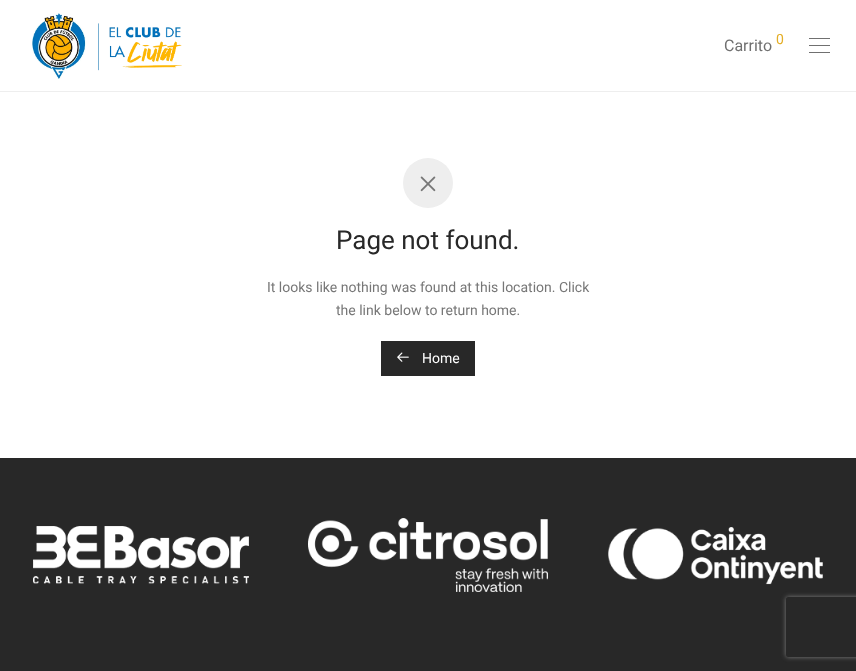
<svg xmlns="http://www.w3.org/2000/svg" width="856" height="671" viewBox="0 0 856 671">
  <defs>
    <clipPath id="clip1"><path d="M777 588H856V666H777ZM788 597H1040C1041 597 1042 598 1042 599V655C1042 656 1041 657 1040 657H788C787 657 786 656 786 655V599C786 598 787 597 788 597Z" clip-rule="evenodd"/></clipPath>
  </defs>
  <rect width="100%" height="100%" fill="#fff"/>
  <path d="M0 91h856v1H0z" fill="#eee"/>
  <image x="32" y="13" width="150" height="66" href="img/1.png"/>
  <path d="M809 38h21v1H809z" fill="#707070"/>
  <path d="M809 45h21v1H809z" fill="#707070"/>
  <path d="M809 52h21v1H809z" fill="#707070"/>
  <circle cx="428" cy="183" r="25" fill="#eee"/>
  <image x="420" y="176" width="16" height="16" href="img/2.png"/>
  <path d="M381 341h94v35H381z" fill="#282828"/>
  <image x="397" y="352" width="12" height="10" href="img/3.png"/>
  <path d="M0 458h856v213H0z" fill="#282828"/>
  <image x="33" y="526" width="216" height="58" href="img/4.png"/>
  <image x="308" y="518" width="240" height="74" href="img/5.png"/>
  <image x="608" y="527" width="215" height="58" href="img/6.png"/>
  <g clip-path="url(#clip1)">
    <rect x="786" y="597" width="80" height="60" rx="2" fill="#808080" filter="blur(2.5px)"/>
  </g>
  <text x="724" y="51" font-family="Roboto" font-size="16" fill="#707070">Carrito</text>
  <text x="776" y="44" font-family="Roboto" font-size="14" fill="#e4ae27">0</text>
  <text x="336" y="249" font-family="Roboto" font-size="26" fill="#282828">Page not found.</text>
  <g font-family="Roboto" font-size="14" fill="#777">
    <text x="267" y="292">It looks like nothing was found at this location. Click</text>
    <text x="336" y="315">the link below to return home.</text>
  </g>
  <text x="422" y="363" font-family="Roboto" font-size="14" fill="#fff">Home</text>
</svg>
